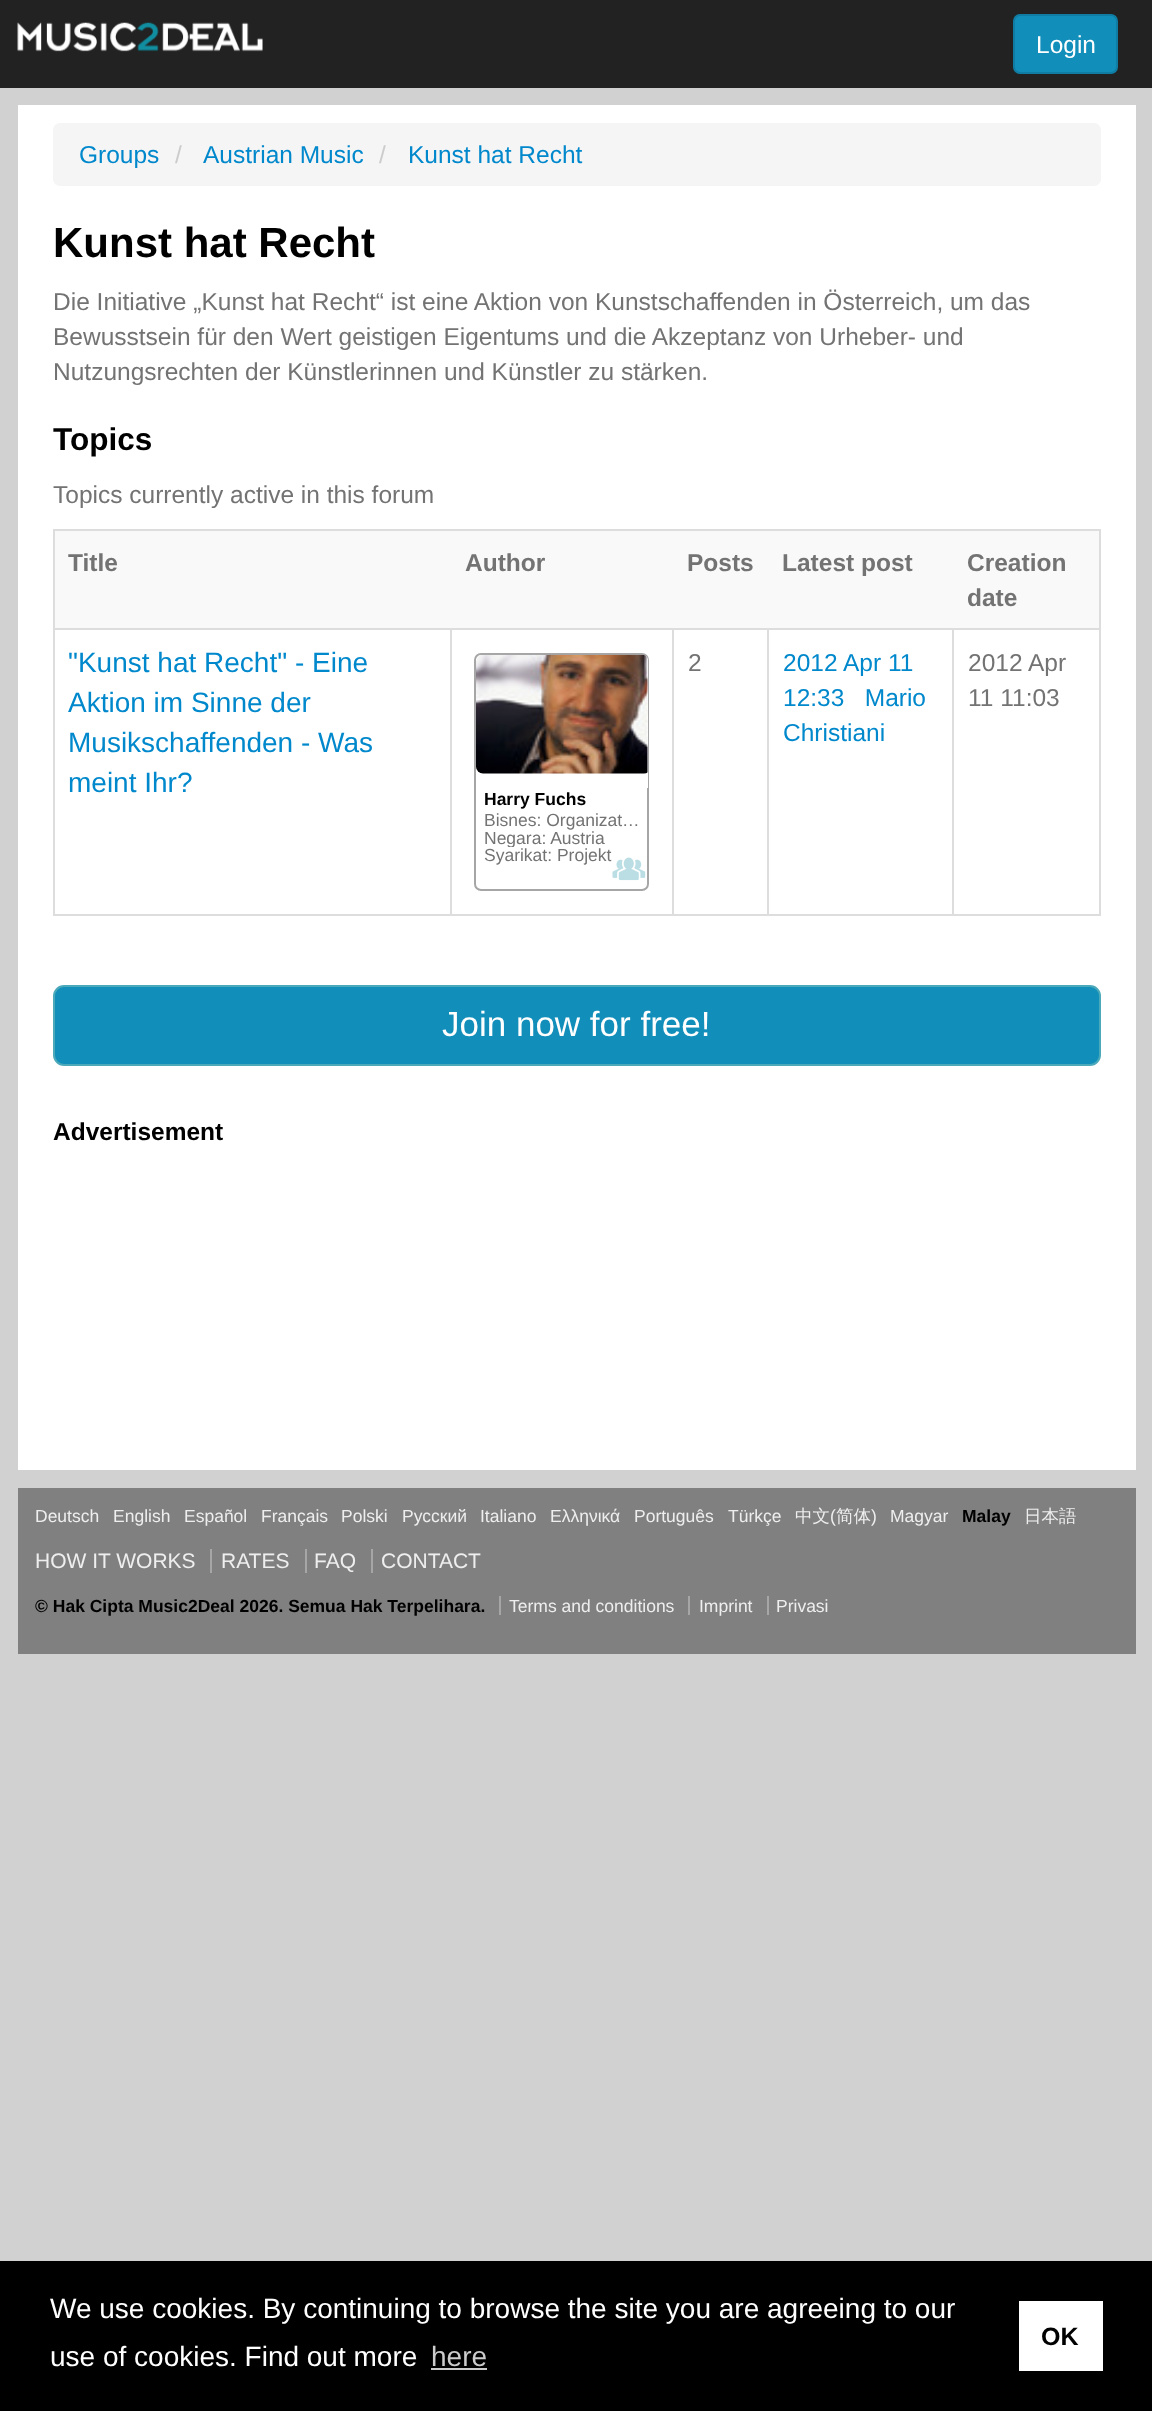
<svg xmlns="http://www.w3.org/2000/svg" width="1152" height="2411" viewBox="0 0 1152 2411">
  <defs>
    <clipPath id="clip1"><rect x="476" y="655" width="172" height="234" rx="5"/></clipPath>
    <clipPath id="clip2"><path d="M483 830h158v17H483z"/></clipPath>
  </defs>
  <rect width="100%" height="100%" fill="#d1d1d1"/>
  <path d="M0 0h1152v88H0z" fill="#222"/>
  <image x="17" y="22" width="246" height="30" href="img/1.png"/>
  <rect x="1014" y="15" width="103" height="58" rx="6" fill="#118eba" stroke="#0f7ca3" stroke-width="2"/>
  <path d="M18 105h1118v1365H18z" fill="#fff"/>
  <rect x="53" y="123" width="1048" height="63" rx="7" fill="#f5f5f5"/>
  <path d="M53 529h1048v2H53z" fill="#ddd"/>
  <path d="M1099 529h2v386H1099z" fill="#ddd"/>
  <path d="M53 914h1048v2H53z" fill="#ddd"/>
  <path d="M53 529h2v386H53z" fill="#ddd"/>
  <path d="M55 531h1044v97H55z" fill="#f9f9f9"/>
  <path d="M952 628h149v2H952z" fill="#ddd"/>
  <path d="M952 628h2v287H952z" fill="#ddd"/>
  <path d="M767 628h187v2H767z" fill="#ddd"/>
  <path d="M767 628h2v287H767z" fill="#ddd"/>
  <path d="M672 628h96v2H672z" fill="#ddd"/>
  <path d="M672 628h2v287H672z" fill="#ddd"/>
  <path d="M450 628h224v2H450z" fill="#ddd"/>
  <path d="M450 628h2v287H450z" fill="#ddd"/>
  <path d="M53 628h399v2H53z" fill="#ddd"/>
  <rect x="475" y="654" width="173" height="236" rx="6" fill="none" stroke="#a6a6a6" stroke-width="2"/>
  <g clip-path="url(#clip1)">
    <path d="M483 655H643C646 655 648 657 648 660V788H483C479 788 476 785 476 781V662C476 658 479 655 483 655Z" fill="#fff"/>
  </g>
  <image x="476" y="654" width="172" height="120" href="img/2.png"/>
  <image x="612" y="857" width="34" height="24" href="img/3.png"/>
  <rect x="54" y="986" width="1046" height="79" rx="10" fill="#118eba" stroke="#4ba9ba" stroke-width="2"/>
  <path d="M18 1488h1118v166H18z" fill="#808080"/>
  <path d="M210 1549h2v24H210z" fill="#a6a6a6"/>
  <path d="M305 1549h2v24H305z" fill="#a6a6a6"/>
  <path d="M371 1549h2v24H371z" fill="#a6a6a6"/>
  <path d="M499 1596h2v19H499z" fill="#a6a6a6"/>
  <path d="M688 1596h2v19H688z" fill="#a6a6a6"/>
  <path d="M767 1596h2v19H767z" fill="#a6a6a6"/>
  <path d="M0 2261h1152v150H0z" fill="#000"/>
  <path d="M431 2368h56v2H431z" fill="#ccc"/>
  <path d="M1019 2301h84v70H1019z" fill="#fff"/>
  <text x="1036" y="53" font-family="Liberation Sans" font-size="24.5" fill="#fff">Login</text>
  <text x="79" y="163" font-family="Liberation Sans" font-size="24.5" fill="#08c">Groups</text>
  <text x="175" y="163" font-family="Liberation Sans" font-size="24.5" fill="#ccc">/</text>
  <text x="203" y="163" font-family="Liberation Sans" font-size="24.5" fill="#08c">Austrian Music</text>
  <text x="379" y="163" font-family="Liberation Sans" font-size="24.5" fill="#ccc">/</text>
  <text x="408" y="163" font-family="Liberation Sans" font-size="24.5" fill="#08c">Kunst hat Recht</text>
  <text x="53" y="257" font-family="Liberation Sans" font-size="42" font-weight="bold" fill="#000">Kunst hat Recht</text>
  <g font-family="Liberation Sans" font-size="24.5" fill="#737373">
    <text x="53" y="310">Die Initiative „Kunst hat Recht“ ist eine Aktion von Kunstschaffenden in Österreich, um das</text>
    <text x="53" y="345">Bewusstsein für den Wert geistigen Eigentums und die Akzeptanz von Urheber- und</text>
    <text x="53" y="380">Nutzungsrechten der Künstlerinnen und Künstler zu stärken.</text>
  </g>
  <text x="53" y="450" font-family="Liberation Sans" font-size="31.5" font-weight="bold" fill="#000">Topics</text>
  <text x="53" y="503" font-family="Liberation Sans" font-size="24.5" fill="#737373">Topics currently active in this forum</text>
  <g font-family="Liberation Sans" font-size="24.5" font-weight="bold" fill="#737373">
    <text x="68" y="571">Title</text>
    <text x="465" y="571">Author</text>
    <text x="687" y="571">Posts</text>
    <text x="782" y="571">Latest post</text>
    <text x="967" y="571">Creation</text>
    <text x="967" y="606">date</text>
  </g>
  <g font-family="Liberation Sans" font-size="28" fill="#08c">
    <text x="68" y="672">"Kunst hat Recht" - Eine</text>
    <text x="68" y="712">Aktion im Sinne der</text>
    <text x="68" y="752">Musikschaffenden - Was</text>
    <text x="68" y="792">meint Ihr?</text>
  </g>
  <text x="688" y="671" font-family="Liberation Sans" font-size="24.5" fill="#737373">2</text>
  <g font-family="Liberation Sans" font-size="24.5" fill="#08c">
    <text x="783" y="671">2012 Apr 11</text>
    <text x="783" y="706" xml:space="preserve">12:33   Mario</text>
    <text x="783" y="741">Christiani</text>
  </g>
  <g font-family="Liberation Sans" font-size="24.5" fill="#737373">
    <text x="968" y="671">2012 Apr</text>
    <text x="968" y="706">11 11:03</text>
  </g>
  <text x="484" y="805" font-family="Liberation Sans" font-size="17.5" font-weight="bold" fill="#000">Harry Fuchs</text>
  <text x="484" y="826" font-family="Liberation Sans" font-size="17.5" fill="#737373">Bisnes: Organizat…</text>
  <g clip-path="url(#clip2)">
    <text x="484" y="844" font-family="Liberation Sans" font-size="17.5" fill="#737373">Negara: Austria</text>
  </g>
  <text x="484" y="861" font-family="Liberation Sans" font-size="17.5" fill="#737373">Syarikat: Projekt</text>
  <text x="442" y="1036" font-family="Liberation Sans" font-size="35" fill="#fff">Join now for free!</text>
  <text x="53" y="1140" font-family="Liberation Sans" font-size="24.5" font-weight="bold" fill="#000">Advertisement</text>
  <g font-family="Liberation Sans" font-size="17.5" fill="#eee">
    <text x="35" y="1522">Deutsch</text>
    <text x="113" y="1522">English</text>
    <text x="184" y="1522">Español</text>
    <text x="261" y="1522">Français</text>
    <text x="341" y="1522">Polski</text>
    <text x="402" y="1522">Русский</text>
    <text x="480" y="1522">Italiano</text>
    <text x="550" y="1522">Ελληνικά</text>
    <text x="634" y="1522">Português</text>
    <text x="728" y="1522">Türkçe</text>
  </g>
  <text x="795" y="1522" font-family="WenQuanYi Zen Hei" font-size="17.5" font-weight="500" fill="#eee">中文</text>
  <text x="830" y="1522" font-family="Liberation Sans" font-size="17.5" fill="#eee">(</text>
  <text x="836" y="1522" font-family="WenQuanYi Zen Hei" font-size="17.5" font-weight="500" fill="#eee">简体</text>
  <g font-family="Liberation Sans" font-size="17.5" fill="#eee">
    <text x="871" y="1522">)</text>
    <text x="890" y="1522">Magyar</text>
  </g>
  <text x="962" y="1522" font-family="Liberation Sans" font-size="17.5" font-weight="bold" fill="#000">Malay</text>
  <text x="1024" y="1522" font-family="WenQuanYi Zen Hei" font-size="17.5" font-weight="500" fill="#eee">日本語</text>
  <g font-family="Liberation Sans" font-size="21" fill="#eee">
    <text x="35" y="1568">HOW IT WORKS</text>
    <text x="221" y="1568">RATES</text>
    <text x="314" y="1568">FAQ</text>
    <text x="381" y="1568">CONTACT</text>
  </g>
  <text x="35" y="1612" font-family="Liberation Sans" font-size="17.5" font-weight="bold" fill="#000">© Hak Cipta Music2Deal 2026. Semua Hak Terpelihara.</text>
  <g font-family="Liberation Sans" font-size="17.5" fill="#eee">
    <text x="509" y="1612">Terms and conditions</text>
    <text x="699" y="1612">Imprint</text>
    <text x="776" y="1612">Privasi</text>
  </g>
  <g font-family="Liberation Sans" font-size="28" fill="#fff">
    <text x="50" y="2318">We use cookies. By continuing to browse the site you are agreeing to our</text>
    <text x="50" y="2366">use of cookies. Find out more</text>
  </g>
  <text x="431" y="2366" font-family="Liberation Sans" font-size="28" fill="#ccc">here</text>
  <text x="1041" y="2345" font-family="Liberation Sans" font-size="25" font-weight="bold" fill="#000">OK</text>
</svg>
